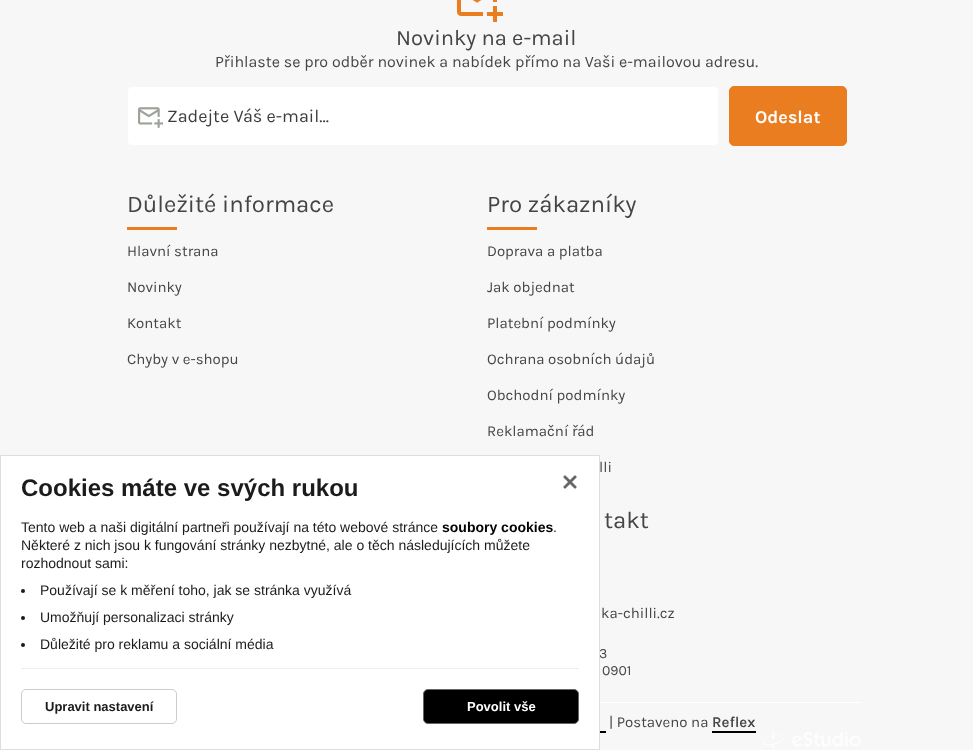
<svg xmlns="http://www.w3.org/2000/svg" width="973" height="750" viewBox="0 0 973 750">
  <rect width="100%" height="100%" fill="#f7f7f8"/>
  <image x="456" y="0" width="47" height="22" href="img/1.png"/>
  <rect x="127" y="86" width="592" height="60" rx="5" fill="#fff"/>
  <image x="138" y="107" width="25" height="21" href="img/2.png"/>
  <rect x="127.5" y="86.5" width="591" height="59" rx="4.5" fill="none" stroke="#f7f7f8"/>
  <rect x="729.5" y="86.5" width="117" height="59" rx="4.5" fill="#e97d20" stroke="#e97d20"/>
  <path d="M600 702h262v1H600z" fill="#fff"/>
  <path d="M127 227h50v3H127z" fill="#e97d20"/>
  <path d="M487 227h50v3H487z" fill="#e97d20"/>
  <path d="M712 731h44v2H712z" fill="#000001"/>
  <path d="M600 731h6v2H600z" fill="#000001"/>
  <image x="763" y="731" width="98" height="17" href="img/3.png"/>
  <text x="396" y="45" font-family="Karla" font-size="22" fill="#454545">Novinky na e-mail</text>
  <text x="215" y="67" font-family="Karla" font-size="16" fill="#454545">Přihlaste se pro odběr novinek a nabídek přímo na Vaši e-mailovou adresu.</text>
  <text x="167" y="122" font-family="Karla" font-size="18" fill="#3d3d3d">Zadejte Váš e-mail...</text>
  <text x="755" y="123" font-family="Karla" font-size="18" font-weight="bold" fill="#fff">Odeslat</text>
  <text x="127" y="212" font-family="Karla" font-size="24" fill="#454545">Důležité informace</text>
  <g font-family="Karla" font-size="15" fill="#454545">
    <text x="127" y="256">Hlavní strana</text>
    <text x="127" y="292">Novinky</text>
    <text x="127" y="328">Kontakt</text>
    <text x="127" y="364">Chyby v e-shopu</text>
  </g>
  <text x="487" y="212" font-family="Karla" font-size="24" fill="#454545">Pro zákazníky</text>
  <g font-family="Karla" font-size="15" fill="#454545">
    <text x="487" y="256">Doprava a platba</text>
    <text x="487" y="292">Jak objednat</text>
    <text x="487" y="328">Platební podmínky</text>
    <text x="487" y="364">Ochrana osobních údajů</text>
    <text x="487" y="400">Obchodní podmínky</text>
    <text x="487" y="436">Reklamační řád</text>
    <text x="599" y="472">lli</text>
  </g>
  <text x="604" y="528" font-family="Karla" font-size="24" fill="#454545">takt</text>
  <text x="601" y="618" font-family="Karla" font-size="15" fill="#454545">ka-chilli.cz</text>
  <g font-family="Karla" font-size="14" fill="#454545">
    <text x="599" y="658">3</text>
    <text x="602" y="675">0901</text>
  </g>
  <text x="609" y="727" font-family="Karla" font-size="15" fill="#454545">| Postaveno na</text>
  <text x="712" y="727" font-family="Karla" font-size="15" font-weight="600" fill="#454545">Reflex</text>
  <path d="M0.5 455.5h599v294H0.5z" fill="#fff" stroke="#ddd"/>
  <text x="21" y="496" font-family="Liberation Sans" font-size="24" font-weight="bold" fill="#1c1b1b">Cookies máte ve svých rukou</text>
  <text x="21" y="532" font-family="Liberation Sans" font-size="14" fill="#1c1b1b">Tento web a naši digitální partneři používají na této webové stránce</text>
  <text x="442" y="532" font-family="Liberation Sans" font-size="14" font-weight="bold" fill="#000001">soubory cookies</text>
  <g font-family="Liberation Sans" font-size="14" fill="#1c1b1b">
    <text x="553" y="532">.</text>
    <text x="21" y="550">Některé z nich jsou k fungování stránky nezbytné, ale o těch následujících můžete</text>
    <text x="21" y="568">rozhodnout sami:</text>
  </g>
  <circle cx="23" cy="591" r="2" fill="#1c1b1b"/>
  <text x="40" y="595" font-family="Liberation Sans" font-size="14" fill="#1c1b1b">Používají se k měření toho, jak se stránka využívá</text>
  <circle cx="23" cy="618" r="2" fill="#1c1b1b"/>
  <text x="40" y="622" font-family="Liberation Sans" font-size="14" fill="#1c1b1b">Umožňují personalizaci stránky</text>
  <circle cx="23" cy="645" r="2" fill="#1c1b1b"/>
  <text x="40" y="649" font-family="Liberation Sans" font-size="14" fill="#1c1b1b">Důležité pro reklamu a sociální média</text>
  <image x="563" y="475" width="14" height="14" href="img/4.png"/>
  <path d="M21 668h558v1H21z" fill="#ededed"/>
  <rect x="21.5" y="689.5" width="155" height="34" rx="4.5" fill="none" stroke="#ccc"/>
  <text x="45" y="711" font-family="Liberation Sans" font-size="13" font-weight="bold" fill="#1c1b1b">Upravit nastavení</text>
  <rect x="423.5" y="689.5" width="155" height="34" rx="4.5" fill="#000" stroke="#656565"/>
  <text x="467" y="711" font-family="Liberation Sans" font-size="13" font-weight="bold" fill="#fff">Povolit vše</text>
</svg>
